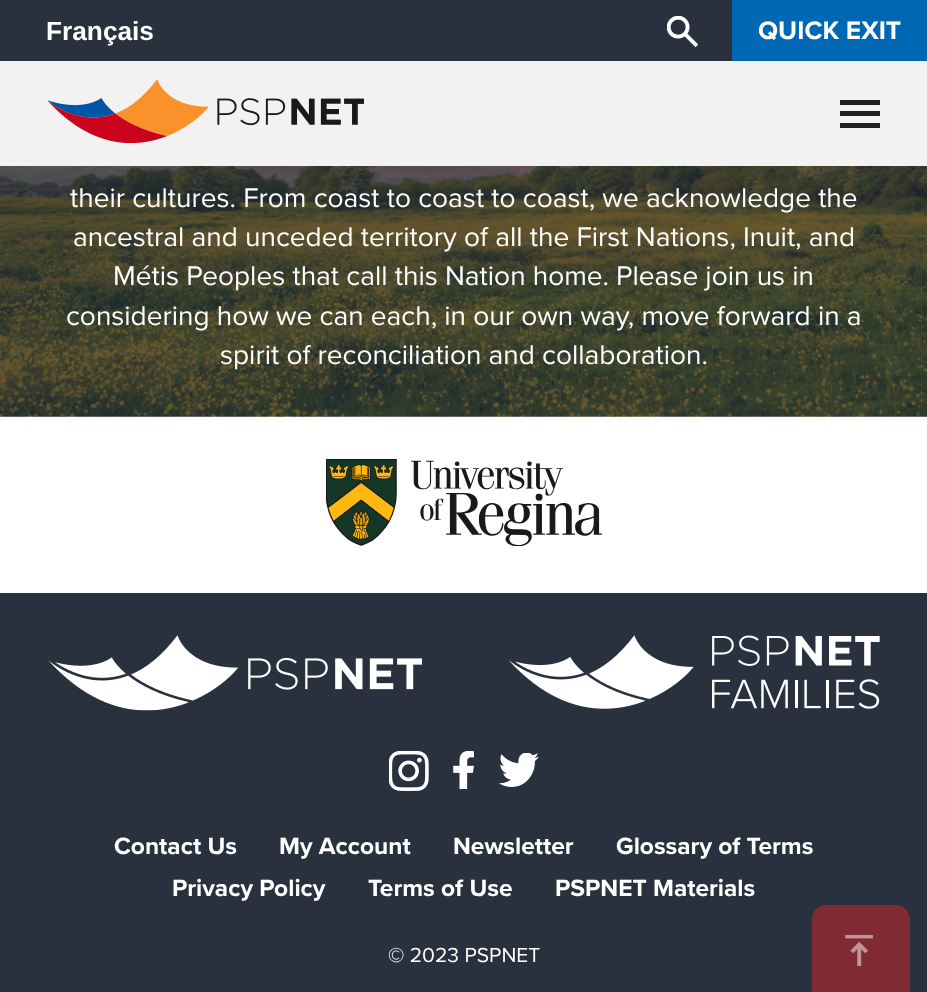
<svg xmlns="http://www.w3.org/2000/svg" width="927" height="992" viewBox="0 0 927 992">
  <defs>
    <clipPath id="clip1"><path d="M840 100h40v28H840z"/></clipPath>
  </defs>
  <rect width="100%" height="100%" fill="#fff"/>
  <path d="M0 0h732v61H0z" fill="#28313d"/>
  <image x="667" y="16" width="31" height="31" href="img/1.png"/>
  <path d="M732 0h195v61H732z" fill="#0067b4"/>
  <path d="M0 61h927v105H0z" fill="#f2f2f2"/>
  <image x="47" y="79" width="317" height="64" href="img/2.png"/>
  <g clip-path="url(#clip1)">
    <path d="M840 128V123H881V128ZM840 116V111H881V116ZM840 105V100H881V105Z" fill="#231f20"/>
  </g>
  <image x="0" y="166" width="927" height="251" href="img/3.png"/>
  <image x="326" y="459" width="276" height="87" href="img/4.png"/>
  <path d="M0 593h927v399H0z" fill="#28313d"/>
  <image x="48" y="635" width="374" height="76" href="img/5.png"/>
  <image x="508" y="635" width="372" height="74" href="img/6.png"/>
  <image x="389" y="751" width="40" height="40" href="img/7.png"/>
  <image x="453" y="751" width="21" height="38" href="img/8.png"/>
  <image x="499" y="753" width="40" height="34" href="img/9.png"/>
  <path d="M826 905H896C903.5 905 910 911.5 910 919V992H812V919C812 911.5 818.5 905 826 905Z" fill="#802a33"/>
  <image x="845" y="935" width="28" height="31" href="img/10.png"/>
  <text x="46" y="40" font-family="Liberation Sans" font-size="26.25" font-weight="bold" fill="#fff">Français</text>
  <text x="758" y="39" font-family="Proxima Nova" font-size="26.25" font-weight="bold" fill="#fff">QUICK EXIT</text>
  <g font-family="Proxima Nova" font-size="28" fill="#fff">
    <text x="70" y="207">their cultures. From coast to coast to coast, we acknowledge the</text>
    <text x="73" y="246">ancestral and unceded territory of all the First Nations, Inuit, and</text>
    <text x="113" y="285">Métis Peoples that call this Nation home. Please join us in</text>
    <text x="66" y="325">considering how we can each, in our own way, move forward in a</text>
    <text x="220" y="364">spirit of reconciliation and collaboration.</text>
  </g>
  <g font-family="Proxima Nova" font-size="24.5" font-weight="bold" fill="#fff">
    <text x="114" y="854">Contact Us</text>
    <text x="279" y="854">My Account</text>
    <text x="453" y="854">Newsletter</text>
    <text x="616" y="854">Glossary of Terms</text>
    <text x="172" y="896">Privacy Policy</text>
    <text x="368" y="896">Terms of Use</text>
    <text x="555" y="896">PSPNET Materials</text>
  </g>
  <text x="388" y="962" font-family="Proxima Nova" font-size="21" fill="#fff">© 2023 PSPNET</text>
</svg>
